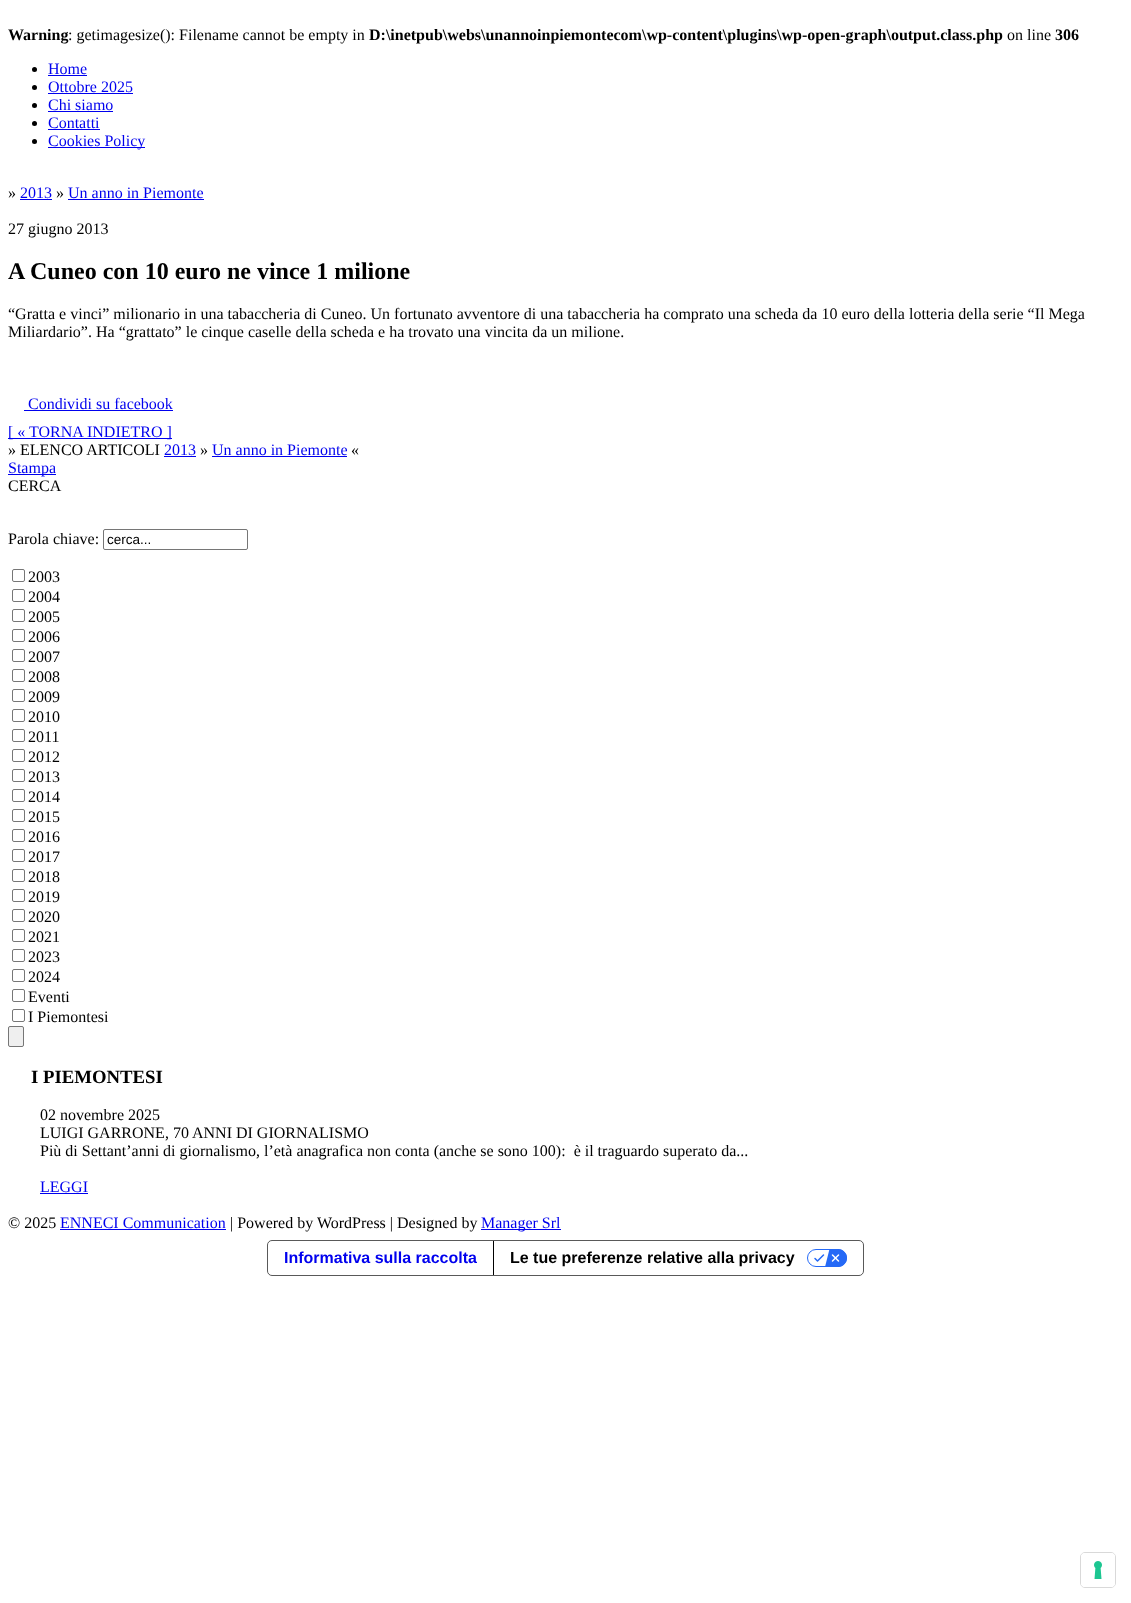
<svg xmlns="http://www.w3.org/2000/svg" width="1131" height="1603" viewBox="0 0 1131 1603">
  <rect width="100%" height="100%" fill="#fff"/>
  <circle cx="34.5" cy="69.5" r="2.5" fill="#000"/>
  <path d="M48 75h39v1H48z" fill="#00e"/>
  <circle cx="34.5" cy="87.5" r="2.5" fill="#000"/>
  <path d="M48 93h85v1H48z" fill="#00e"/>
  <circle cx="34.5" cy="105.5" r="2.5" fill="#000"/>
  <path d="M48 111h65v1H48z" fill="#00e"/>
  <circle cx="34.5" cy="123.5" r="2.5" fill="#000"/>
  <path d="M48 129h52v1H48z" fill="#00e"/>
  <circle cx="34.5" cy="141.5" r="2.5" fill="#000"/>
  <path d="M48 147h97v1H48z" fill="#00e"/>
  <path d="M20 199h32v1H20z" fill="#00e"/>
  <path d="M68 199h136v1H68z" fill="#00e"/>
  <path d="M24 410h149v1H24z" fill="#00e"/>
  <path d="M8 438h164v1H8z" fill="#00e"/>
  <path d="M164 456h32v1H164z" fill="#00e"/>
  <path d="M212 456h135v1H212z" fill="#00e"/>
  <path d="M8 474h48v1H8z" fill="#00e"/>
  <rect x="103.5" y="529.5" width="144" height="20" rx="1.5" fill="none" stroke="#767676"/>
  <rect x="12.5" y="569.5" width="12" height="12" rx="1.5" fill="none" stroke="#767676"/>
  <rect x="12.5" y="589.5" width="12" height="12" rx="1.5" fill="none" stroke="#767676"/>
  <rect x="12.5" y="609.5" width="12" height="12" rx="1.5" fill="none" stroke="#767676"/>
  <rect x="12.5" y="629.5" width="12" height="12" rx="1.5" fill="none" stroke="#767676"/>
  <rect x="12.5" y="649.5" width="12" height="12" rx="1.5" fill="none" stroke="#767676"/>
  <rect x="12.5" y="669.5" width="12" height="12" rx="1.5" fill="none" stroke="#767676"/>
  <rect x="12.5" y="689.5" width="12" height="12" rx="1.5" fill="none" stroke="#767676"/>
  <rect x="12.5" y="709.5" width="12" height="12" rx="1.5" fill="none" stroke="#767676"/>
  <rect x="12.5" y="729.5" width="12" height="12" rx="1.5" fill="none" stroke="#767676"/>
  <rect x="12.5" y="749.5" width="12" height="12" rx="1.5" fill="none" stroke="#767676"/>
  <rect x="12.5" y="769.5" width="12" height="12" rx="1.5" fill="none" stroke="#767676"/>
  <rect x="12.5" y="789.5" width="12" height="12" rx="1.5" fill="none" stroke="#767676"/>
  <rect x="12.5" y="809.5" width="12" height="12" rx="1.5" fill="none" stroke="#767676"/>
  <rect x="12.5" y="829.5" width="12" height="12" rx="1.5" fill="none" stroke="#767676"/>
  <rect x="12.5" y="849.5" width="12" height="12" rx="1.5" fill="none" stroke="#767676"/>
  <rect x="12.5" y="869.5" width="12" height="12" rx="1.5" fill="none" stroke="#767676"/>
  <rect x="12.5" y="889.5" width="12" height="12" rx="1.5" fill="none" stroke="#767676"/>
  <rect x="12.5" y="909.5" width="12" height="12" rx="1.5" fill="none" stroke="#767676"/>
  <rect x="12.5" y="929.5" width="12" height="12" rx="1.5" fill="none" stroke="#767676"/>
  <rect x="12.5" y="949.5" width="12" height="12" rx="1.5" fill="none" stroke="#767676"/>
  <rect x="12.5" y="969.5" width="12" height="12" rx="1.5" fill="none" stroke="#767676"/>
  <rect x="12.5" y="989.5" width="12" height="12" rx="1.5" fill="none" stroke="#767676"/>
  <rect x="12.5" y="1009.5" width="12" height="12" rx="1.5" fill="none" stroke="#767676"/>
  <rect x="8.5" y="1026.5" width="15" height="20" rx="1.5" fill="#efefef" stroke="#767676"/>
  <path d="M40 1193h48v1H40z" fill="#00e"/>
  <path d="M60 1229h166v1H60z" fill="#00e"/>
  <path d="M481 1229h80v1H481z" fill="#00e"/>
  <rect x="267.5" y="1240.5" width="596" height="35" rx="4.5" fill="none" stroke="#595959"/>
  <path d="M493 1241h1v34H493z" fill="#000"/>
  <image x="807" y="1249" width="40" height="18" href="img/1.png"/>
  <rect x="1080.5" y="1552.5" width="35" height="35" rx="4.5" fill="none" stroke="#d9d9d9"/>
  <rect x="1081" y="1553" width="34" height="34" rx="4" fill="#fff"/>
  <image x="1094" y="1561" width="8" height="18" href="img/2.png"/>
  <text x="8" y="40" font-family="Liberation Serif" font-size="16" font-weight="bold" fill="#000">Warning</text>
  <text x="68" y="40" font-family="Liberation Serif" font-size="16" fill="#000">: getimagesize(): Filename cannot be empty in</text>
  <text x="369" y="40" font-family="Liberation Serif" font-size="16" font-weight="bold" fill="#000">D:\inetpub\webs\unannoinpiemontecom\wp-content\plugins\wp-open-graph\output.class.php</text>
  <text x="1007" y="40" font-family="Liberation Serif" font-size="16" fill="#000">on line</text>
  <text x="1055" y="40" font-family="Liberation Serif" font-size="16" font-weight="bold" fill="#000">306</text>
  <g font-family="Liberation Serif" font-size="16" fill="#00e">
    <text x="48" y="74">Home</text>
    <text x="48" y="92">Ottobre 2025</text>
    <text x="48" y="110">Chi siamo</text>
    <text x="48" y="128">Contatti</text>
    <text x="48" y="146">Cookies Policy</text>
  </g>
  <text x="8" y="198" font-family="Liberation Serif" font-size="16" fill="#000">»</text>
  <text x="20" y="198" font-family="Liberation Serif" font-size="16" fill="#00e">2013</text>
  <text x="56" y="198" font-family="Liberation Serif" font-size="16" fill="#000">»</text>
  <text x="68" y="198" font-family="Liberation Serif" font-size="16" fill="#00e">Un anno in Piemonte</text>
  <text x="8" y="234" font-family="Liberation Serif" font-size="16" fill="#000">27 giugno 2013</text>
  <text x="8" y="279" font-family="Liberation Serif" font-size="24" font-weight="bold" fill="#000">A Cuneo con 10 euro ne vince 1 milione</text>
  <g font-family="Liberation Serif" font-size="16" fill="#000">
    <text x="8" y="319">“Gratta e vinci” milionario in una tabaccheria di Cuneo. Un fortunato avventore di una tabaccheria ha comprato una scheda da 10 euro della lotteria della serie “Il Mega</text>
    <text x="8" y="337">Miliardario”. Ha “grattato” le cinque caselle della scheda e ha trovato una vincita da un milione.</text>
  </g>
  <g font-family="Liberation Serif" font-size="16" fill="#00e">
    <text x="28" y="409">Condividi su facebook</text>
    <text x="8" y="437">[ « TORNA INDIETRO ]</text>
  </g>
  <text x="8" y="455" font-family="Liberation Serif" font-size="16" fill="#000">» ELENCO ARTICOLI</text>
  <text x="164" y="455" font-family="Liberation Serif" font-size="16" fill="#00e">2013</text>
  <text x="200" y="455" font-family="Liberation Serif" font-size="16" fill="#000">»</text>
  <text x="212" y="455" font-family="Liberation Serif" font-size="16" fill="#00e">Un anno in Piemonte</text>
  <text x="351" y="455" font-family="Liberation Serif" font-size="16" fill="#000">«</text>
  <text x="8" y="473" font-family="Liberation Serif" font-size="16" fill="#00e">Stampa</text>
  <g font-family="Liberation Serif" font-size="16" fill="#000">
    <text x="8" y="491">CERCA</text>
    <text x="8" y="544">Parola chiave:</text>
  </g>
  <text x="107" y="544" font-family="Liberation Sans" font-size="13.5" fill="#000">cerca...</text>
  <g font-family="Liberation Serif" font-size="16" fill="#000">
    <text x="28" y="582">2003</text>
    <text x="28" y="602">2004</text>
    <text x="28" y="622">2005</text>
    <text x="28" y="642">2006</text>
    <text x="28" y="662">2007</text>
    <text x="28" y="682">2008</text>
    <text x="28" y="702">2009</text>
    <text x="28" y="722">2010</text>
    <text x="28" y="742">2011</text>
    <text x="28" y="762">2012</text>
    <text x="28" y="782">2013</text>
    <text x="28" y="802">2014</text>
    <text x="28" y="822">2015</text>
    <text x="28" y="842">2016</text>
    <text x="28" y="862">2017</text>
    <text x="28" y="882">2018</text>
    <text x="28" y="902">2019</text>
    <text x="28" y="922">2020</text>
    <text x="28" y="942">2021</text>
    <text x="28" y="962">2023</text>
    <text x="28" y="982">2024</text>
    <text x="28" y="1002">Eventi</text>
    <text x="28" y="1022">I Piemontesi</text>
  </g>
  <text x="31" y="1083" font-family="Liberation Serif" font-size="18.75" font-weight="bold" fill="#000">I PIEMONTESI</text>
  <g font-family="Liberation Serif" font-size="16" fill="#000">
    <text x="40" y="1120">02 novembre 2025</text>
    <text x="40" y="1138">LUIGI GARRONE, 70 ANNI DI GIORNALISMO</text>
    <text x="40" y="1156" xml:space="preserve">Più di Settant’anni di giornalismo, l’età anagrafica non conta (anche se sono 100):  è il traguardo superato da...</text>
  </g>
  <text x="40" y="1192" font-family="Liberation Serif" font-size="16" fill="#00e">LEGGI</text>
  <text x="8" y="1228" font-family="Liberation Serif" font-size="16" fill="#000">© 2025</text>
  <text x="60" y="1228" font-family="Liberation Serif" font-size="16" fill="#00e">ENNECI Communication</text>
  <text x="230" y="1228" font-family="Liberation Serif" font-size="16" fill="#000">| Powered by WordPress | Designed by</text>
  <text x="481" y="1228" font-family="Liberation Serif" font-size="16" fill="#00e">Manager Srl</text>
  <text x="284" y="1263" font-family="Liberation Sans" font-size="16" font-weight="bold" fill="#00e">Informativa sulla raccolta</text>
  <text x="510" y="1263" font-family="Liberation Sans" font-size="16" font-weight="bold" fill="#000">Le tue preferenze relative alla privacy</text>
</svg>
